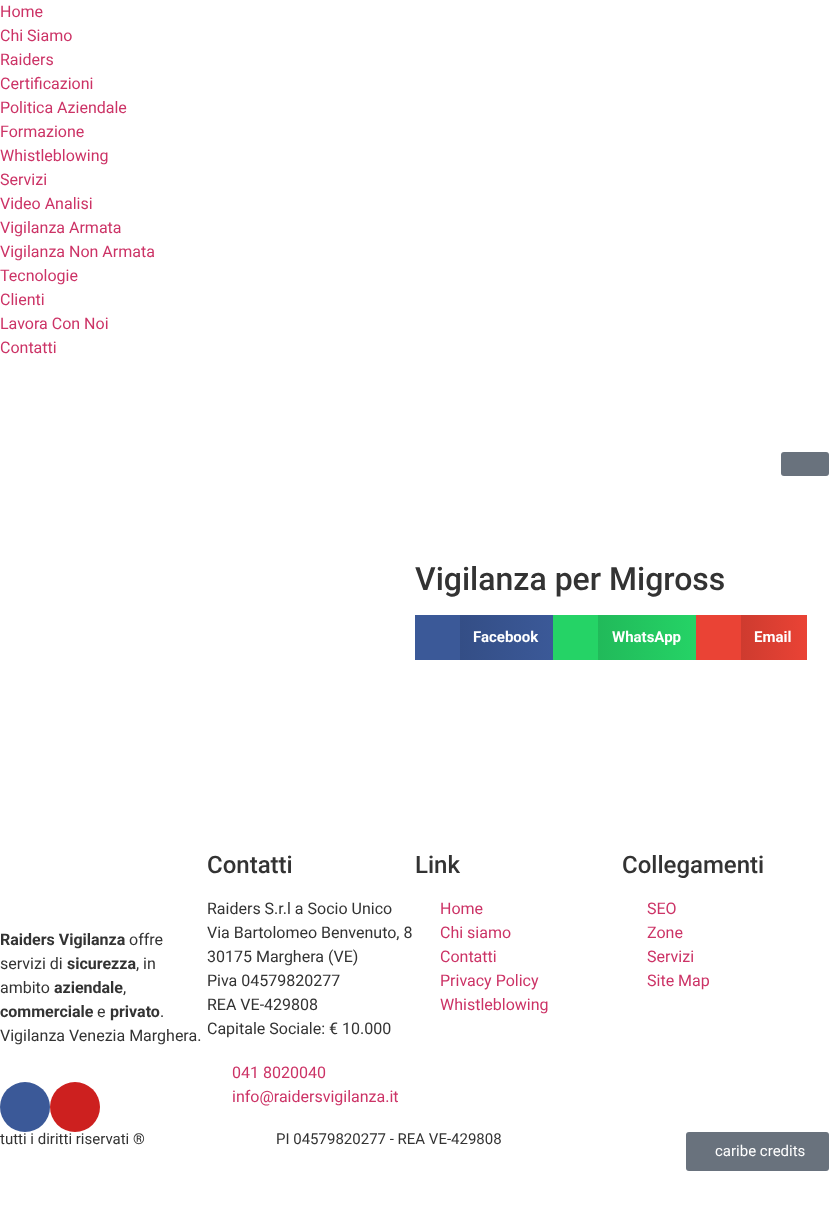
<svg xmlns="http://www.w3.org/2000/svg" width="829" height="1220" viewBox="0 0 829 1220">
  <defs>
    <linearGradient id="g1" gradientUnits="userSpaceOnUse" x1="460" y1="638" x2="553" y2="638"><stop offset="0" stop-color="#344e86"/><stop offset="1" stop-color="#3b5998"/></linearGradient>
    <linearGradient id="g2" gradientUnits="userSpaceOnUse" x1="598" y1="638" x2="696" y2="638"><stop offset="0" stop-color="#21ba5a"/><stop offset="1" stop-color="#25d366"/></linearGradient>
    <linearGradient id="g3" gradientUnits="userSpaceOnUse" x1="741" y1="638" x2="807" y2="638"><stop offset="0" stop-color="#ce3b2f"/><stop offset="1" stop-color="#ea4335"/></linearGradient>
  </defs>
  <rect width="100%" height="100%" fill="#fff"/>
  <rect x="781" y="452" width="48" height="24" rx="3" fill="#69727d"/>
  <path d="M415 615h45v45H415z" fill="#3b5998"/>
  <path d="M460 615h93v45H460z" fill="url(#g1)"/>
  <path d="M553 615h45v45H553z" fill="#25d366"/>
  <path d="M598 615h98v45H598z" fill="url(#g2)"/>
  <path d="M696 615h45v45H696z" fill="#ea4335"/>
  <path d="M741 615h66v45H741z" fill="url(#g3)"/>
  <circle cx="25" cy="1107" r="25" fill="#3b5998"/>
  <circle cx="75" cy="1107" r="25" fill="#cd201f"/>
  <rect x="686" y="1132" width="143" height="39" rx="3" fill="#69727d"/>
  <g font-family="Roboto" font-size="16" fill="#c36">
    <text x="0" y="17">Home</text>
    <text x="0" y="41">Chi Siamo</text>
    <text x="0" y="65">Raiders</text>
    <text x="0" y="89">Certificazioni</text>
    <text x="0" y="113">Politica Aziendale</text>
    <text x="0" y="137">Formazione</text>
    <text x="0" y="161">Whistleblowing</text>
    <text x="0" y="185">Servizi</text>
    <text x="0" y="209">Video Analisi</text>
    <text x="0" y="233">Vigilanza Armata</text>
    <text x="0" y="257">Vigilanza Non Armata</text>
    <text x="0" y="281">Tecnologie</text>
    <text x="0" y="305">Clienti</text>
    <text x="0" y="329">Lavora Con Noi</text>
    <text x="0" y="353">Contatti</text>
  </g>
  <text x="415" y="590" font-family="Roboto" font-size="32" font-weight="500" fill="#333">Vigilanza per Migross</text>
  <g font-family="Roboto" font-size="15" font-weight="bold" fill="#fff">
    <text x="473" y="642">Facebook</text>
    <text x="612" y="642">WhatsApp</text>
    <text x="754" y="642">Email</text>
  </g>
  <text x="0" y="945" font-family="Roboto" font-size="16" font-weight="bold" fill="#333">Raiders Vigilanza</text>
  <g font-family="Roboto" font-size="16" fill="#333">
    <text x="129" y="945">offre</text>
    <text x="0" y="969">servizi di</text>
  </g>
  <text x="67" y="969" font-family="Roboto" font-size="16" font-weight="bold" fill="#333">sicurezza</text>
  <g font-family="Roboto" font-size="16" fill="#333">
    <text x="136" y="969">, in</text>
    <text x="0" y="993">ambito</text>
  </g>
  <text x="54" y="993" font-family="Roboto" font-size="16" font-weight="bold" fill="#333">aziendale</text>
  <text x="123" y="993" font-family="Roboto" font-size="16" fill="#333">,</text>
  <text x="0" y="1017" font-family="Roboto" font-size="16" font-weight="bold" fill="#333">commerciale</text>
  <text x="97" y="1017" font-family="Roboto" font-size="16" fill="#333">e</text>
  <text x="110" y="1017" font-family="Roboto" font-size="16" font-weight="bold" fill="#333">privato</text>
  <g font-family="Roboto" font-size="16" fill="#333">
    <text x="160" y="1017">.</text>
    <text x="0" y="1041">Vigilanza Venezia Marghera.</text>
  </g>
  <text x="207" y="873" font-family="Roboto" font-size="24" font-weight="500" fill="#333">Contatti</text>
  <g font-family="Roboto" font-size="16" fill="#333">
    <text x="207" y="914">Raiders S.r.l a Socio Unico</text>
    <text x="207" y="938">Via Bartolomeo Benvenuto, 8</text>
    <text x="207" y="962">30175 Marghera (VE)</text>
    <text x="207" y="986">Piva 04579820277</text>
    <text x="207" y="1010">REA VE-429808</text>
    <text x="207" y="1034">Capitale Sociale: € 10.000</text>
  </g>
  <g font-family="Roboto" font-size="16" fill="#c36">
    <text x="232" y="1078">041 8020040</text>
    <text x="232" y="1102">info@raidersvigilanza.it</text>
  </g>
  <text x="415" y="873" font-family="Roboto" font-size="24" font-weight="500" fill="#333">Link</text>
  <g font-family="Roboto" font-size="16" fill="#c36">
    <text x="440" y="914">Home</text>
    <text x="440" y="938">Chi siamo</text>
    <text x="440" y="962">Contatti</text>
    <text x="440" y="986">Privacy Policy</text>
    <text x="440" y="1010">Whistleblowing</text>
  </g>
  <text x="622" y="873" font-family="Roboto" font-size="24" font-weight="500" fill="#333">Collegamenti</text>
  <g font-family="Roboto" font-size="16" fill="#c36">
    <text x="647" y="914">SEO</text>
    <text x="647" y="938">Zone</text>
    <text x="647" y="962">Servizi</text>
    <text x="647" y="986">Site Map</text>
  </g>
  <g font-family="Roboto" font-size="15" fill="#333">
    <text x="0" y="1144">tutti i diritti riservati ®</text>
    <text x="276" y="1144">PI 04579820277 - REA VE-429808</text>
  </g>
  <text x="715" y="1156" font-family="Roboto" font-size="15" fill="#fff">caribe credits</text>
</svg>
